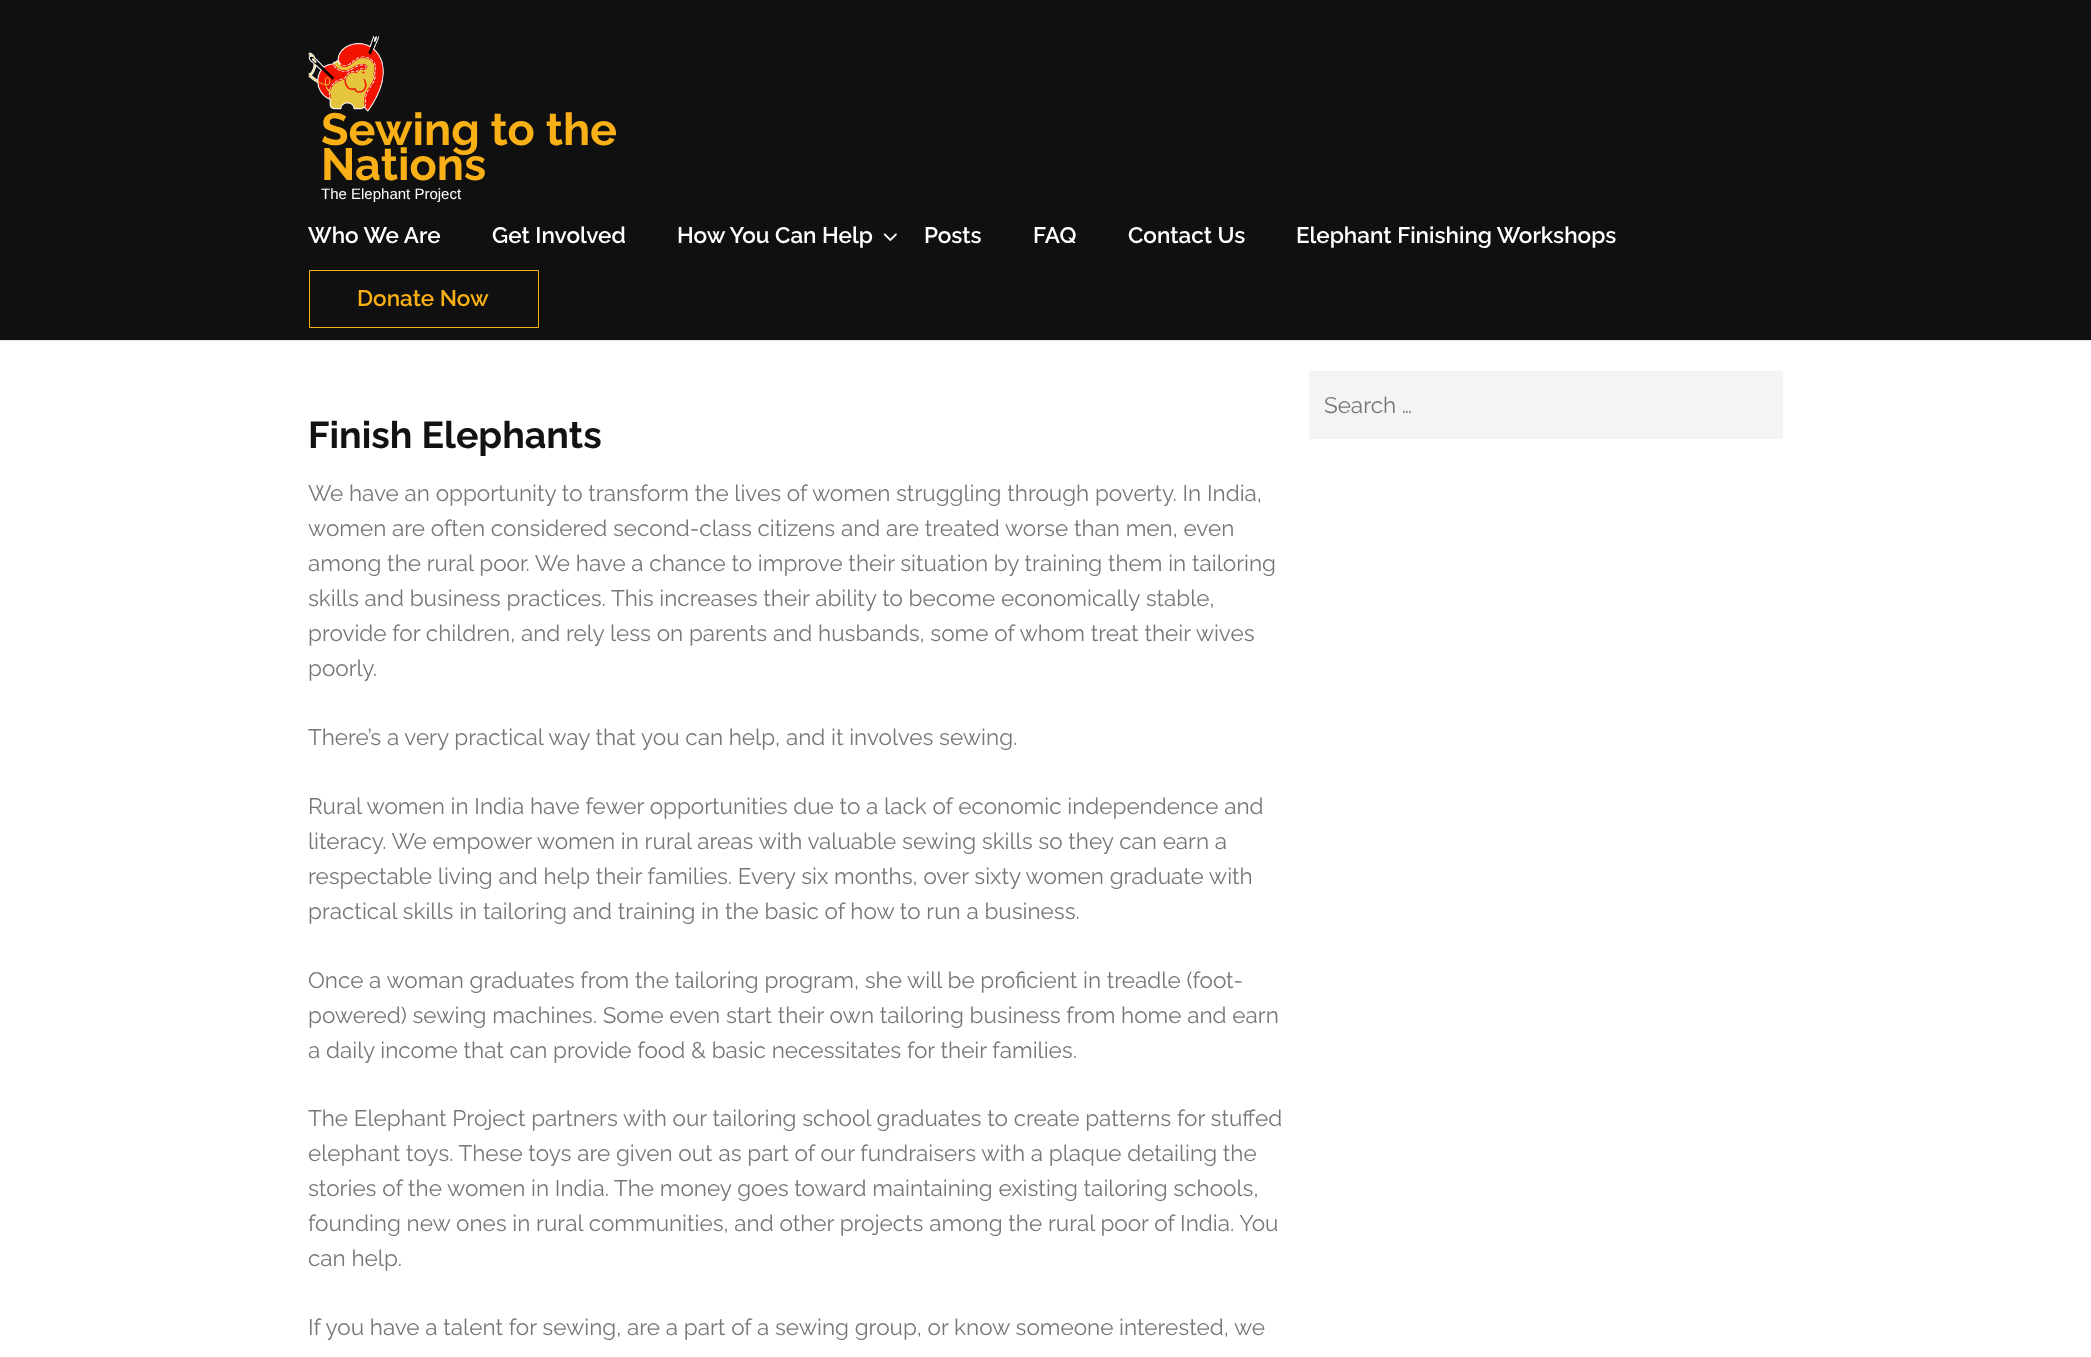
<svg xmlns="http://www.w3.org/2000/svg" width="2091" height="1357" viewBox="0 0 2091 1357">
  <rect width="100%" height="100%" fill="#fff"/>
  <path d="M0 340h2091v1H0z" fill="#e4e4e4"/>
  <path d="M0 0h2091v340H0z" fill="#101010"/>
  <image x="308" y="36" width="76" height="76" href="img/1.png"/>
  <image x="883" y="233" width="14" height="8" href="img/2.png"/>
  <path d="M309.5 270.5h229v57H309.5z" fill="none" stroke="#fcb216"/>
  <path d="M1309 371h474v68H1309z" fill="#f4f4f4"/>
  <g font-family="Raleway" font-size="45" font-weight="bold" fill="#f8b016">
    <text x="321" y="145">Sewing to the</text>
    <text x="321" y="180">Nations</text>
  </g>
  <text x="321" y="199" font-family="Liberation Sans" font-size="15" fill="#fff">The Elephant Project</text>
  <g font-family="Raleway" font-size="22.5" font-weight="600" fill="#fff">
    <text x="308" y="243">Who We Are</text>
    <text x="492" y="243">Get Involved</text>
    <text x="677" y="243">How You Can Help</text>
    <text x="924" y="243">Posts</text>
    <text x="1033" y="243">FAQ</text>
    <text x="1128" y="243">Contact Us</text>
    <text x="1296" y="243">Elephant Finishing Workshops</text>
  </g>
  <text x="357" y="306" font-family="Raleway" font-size="22.5" font-weight="600" fill="#f8b016">Donate Now</text>
  <text x="1324" y="413" font-family="Raleway" font-size="22.5" fill="#777">Search …</text>
  <text x="308" y="448" font-family="Raleway" font-size="37.5" font-weight="bold" fill="#121212">Finish Elephants</text>
  <g font-family="Raleway" font-size="22.5" fill="#777">
    <text x="308" y="501">We have an opportunity to transform the lives of women struggling through poverty. In India,</text>
    <text x="308" y="536">women are often considered second-class citizens and are treated worse than men, even</text>
    <text x="308" y="571">among the rural poor. We have a chance to improve their situation by training them in tailoring</text>
    <text x="308" y="606">skills and business practices. This increases their ability to become economically stable,</text>
    <text x="308" y="641">provide for children, and rely less on parents and husbands, some of whom treat their wives</text>
    <text x="308" y="676">poorly.</text>
    <text x="308" y="745">There’s a very practical way that you can help, and it involves sewing.</text>
    <text x="308" y="814">Rural women in India have fewer opportunities due to a lack of economic independence and</text>
    <text x="308" y="849">literacy. We empower women in rural areas with valuable sewing skills so they can earn a</text>
    <text x="308" y="884">respectable living and help their families. Every six months, over sixty women graduate with</text>
    <text x="308" y="919">practical skills in tailoring and training in the basic of how to run a business.</text>
    <text x="308" y="988">Once a woman graduates from the tailoring program, she will be proficient in treadle (foot-</text>
    <text x="308" y="1023">powered) sewing machines. Some even start their own tailoring business from home and earn</text>
    <text x="308" y="1058">a daily income that can provide food &amp; basic necessitates for their families.</text>
    <text x="308" y="1126">The Elephant Project partners with our tailoring school graduates to create patterns for stuffed</text>
    <text x="308" y="1161">elephant toys. These toys are given out as part of our fundraisers with a plaque detailing the</text>
    <text x="308" y="1196">stories of the women in India. The money goes toward maintaining existing tailoring schools,</text>
    <text x="308" y="1231">founding new ones in rural communities, and other projects among the rural poor of India. You</text>
    <text x="308" y="1266">can help.</text>
    <text x="308" y="1335">If you have a talent for sewing, are a part of a sewing group, or know someone interested, we</text>
  </g>
</svg>
